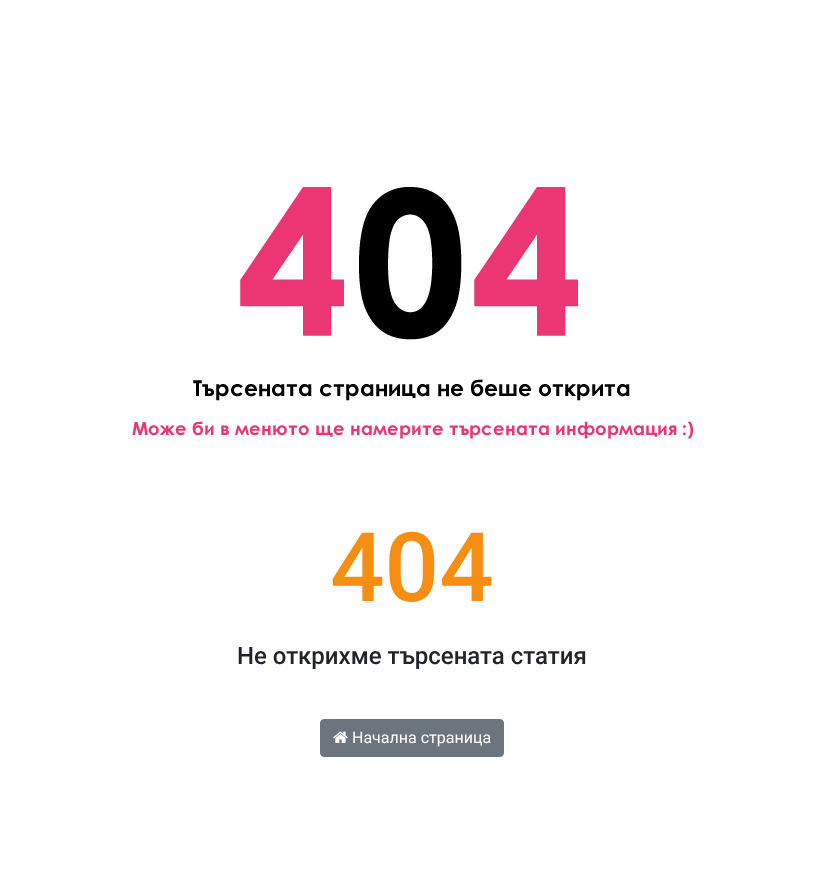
<svg xmlns="http://www.w3.org/2000/svg" width="824" height="885" viewBox="0 0 824 885">
  <rect width="100%" height="100%" fill="#fff"/>
  <image x="132" y="187" width="561" height="252" href="img/1.png"/>
  <rect x="320.5" y="719.5" width="183" height="37" rx="3.5" fill="#6c757d" stroke="#6c757d"/>
  <image x="333" y="731" width="15" height="12" href="img/2.png"/>
  <text x="330" y="601" font-family="Roboto" font-size="96" font-weight="500" fill="#f68e13">404</text>
  <text x="237" y="664" font-family="Roboto" font-size="24" font-weight="500" fill="#212529">Не открихме търсената статия</text>
  <text x="352" y="743" font-family="Roboto" font-size="16" fill="#fff">Начална страница</text>
</svg>
